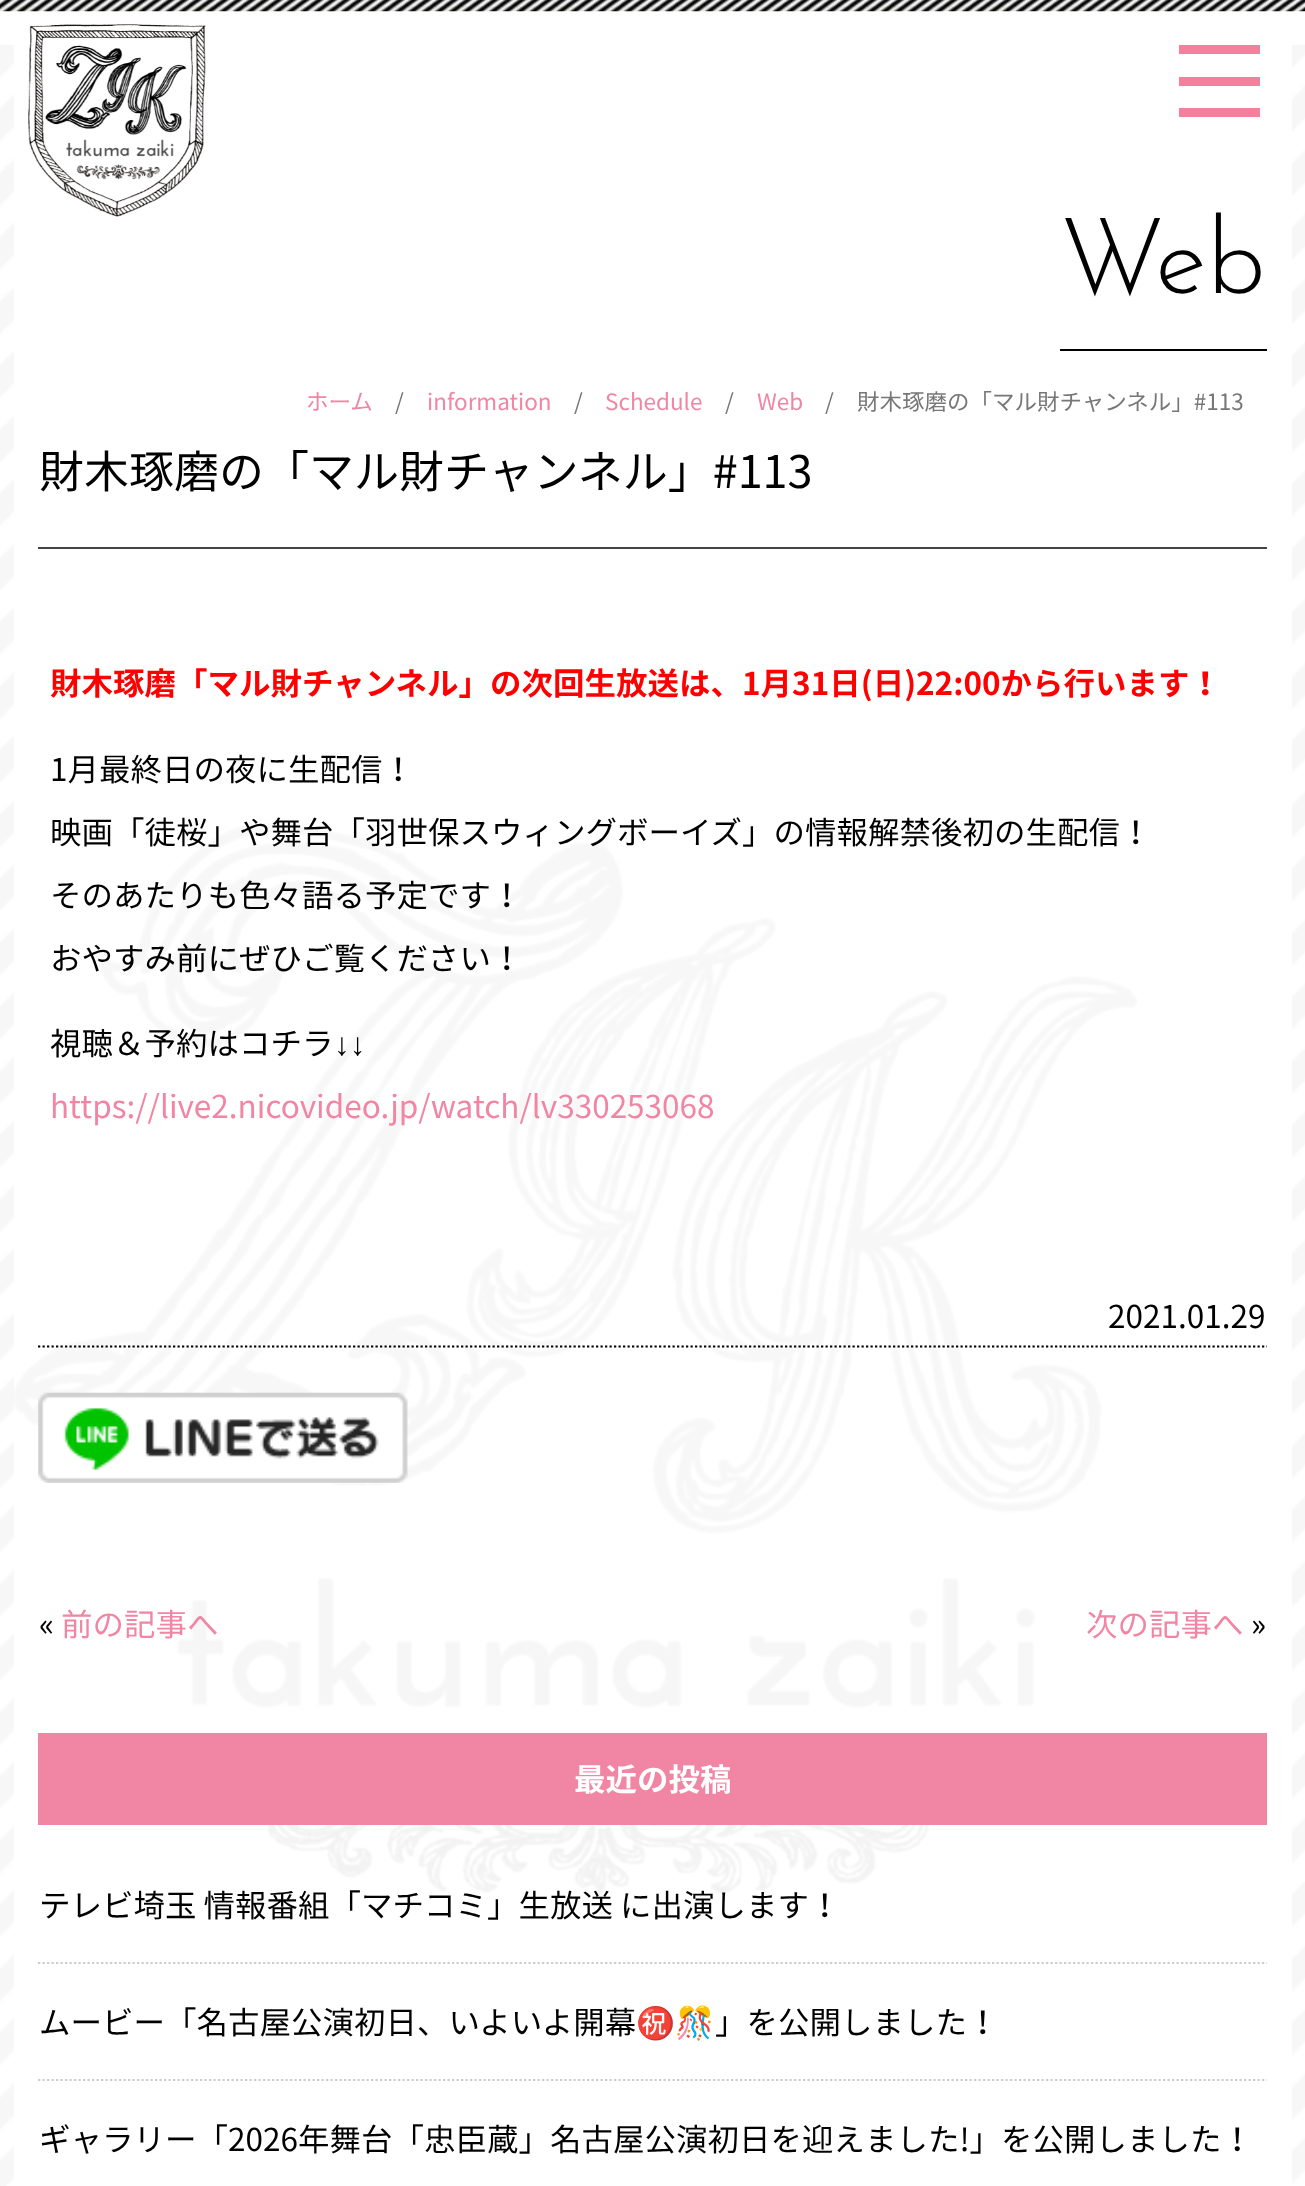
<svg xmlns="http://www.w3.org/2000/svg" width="1305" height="2186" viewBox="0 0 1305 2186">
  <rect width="100%" height="100%" fill="#fff"/>
  <image x="0" y="0" width="1305" height="12" href="img/1.png"/>
  <image x="0" y="45" width="1305" height="2141" href="img/3.png"/>
  <path d="M14 45h1278v2141H14z" fill="#fff"/>
  <image x="28" y="24" width="178" height="193" href="img/2.png"/>
  <path d="M1179 45h81v9H1179z" fill="#f5809d"/>
  <path d="M1179 77h81v9H1179z" fill="#f5809d"/>
  <path d="M1179 108h81v9H1179z" fill="#f5809d"/>
  <image x="14" y="823" width="1123" height="1072" href="img/4.png"/>
  <path d="M1060 349h207v2H1060z" fill="#000"/>
  <path d="M38 547h1229v2H38z" fill="#444"/>
  <path d="M38 1346.5H1267" fill="none" stroke="#000" stroke-width="2.2" stroke-dasharray="2.25 2.25"/>
  <image x="38" y="1392" width="370" height="91" href="img/5.png"/>
  <path d="M38 1733h1229v92H38z" fill="#f186a4"/>
  <path d="M38 1963H1267" fill="none" stroke="#ccc" stroke-width="2.2" stroke-dasharray="2.25 2.25"/>
  <path d="M38 2080H1267" fill="none" stroke="#ccc" stroke-width="2.2" stroke-dasharray="2.25 2.25"/>
  <text x="1060" y="293" font-family="Josefin Sans" font-size="106" font-weight="300" fill="#000">Web</text>
  <text x="306" y="410" font-family="Noto Sans JP" font-size="22.5" fill="#f186a4">ホーム</text>
  <text x="395" y="410" font-family="Noto Sans JP" font-size="22.5" fill="#777">/</text>
  <text x="427" y="410" font-family="Noto Sans JP" font-size="22.5" fill="#f186a4">information</text>
  <text x="574" y="410" font-family="Noto Sans JP" font-size="22.5" fill="#777">/</text>
  <text x="605" y="410" font-family="Noto Sans JP" font-size="22.5" fill="#f186a4">Schedule</text>
  <text x="725" y="410" font-family="Noto Sans JP" font-size="22.5" fill="#777">/</text>
  <text x="757" y="410" font-family="Noto Sans JP" font-size="22.5" fill="#f186a4">Web</text>
  <g font-family="Noto Sans JP" font-size="22.5" fill="#777">
    <text x="825" y="410">/</text>
    <text x="857" y="410">財木琢磨の「マル財チャンネル」#113</text>
  </g>
  <text x="39" y="488" font-family="Noto Sans JP" font-size="45" fill="#000">財木琢磨の「マル財チャンネル」#113</text>
  <text x="50" y="695" font-family="Noto Sans JP" font-size="31.5" font-weight="bold" fill="#f00">財木琢磨「マル財チャンネル」の次回生放送は、1月31日(日)22:00から行います！</text>
  <g font-family="Noto Sans JP" font-size="31.5" fill="#000">
    <text x="50" y="781">1月最終日の夜に生配信！</text>
    <text x="50" y="844">映画「徒桜」や舞台「羽世保スウィングボーイズ」の情報解禁後初の生配信！</text>
    <text x="50" y="907">そのあたりも色々語る予定です！</text>
    <text x="50" y="970">おやすみ前にぜひご覧ください！</text>
    <text x="50" y="1055">視聴＆予約はコチラ</text>
  </g>
  <text x="334" y="1055" font-family="Liberation Sans" font-size="31.5" fill="#000">↓↓</text>
  <text x="50" y="1118" font-family="Noto Sans JP" font-size="31.5" fill="#f186a4">https://live2.nicovideo.jp/watch/lv330253068</text>
  <g font-family="Noto Sans JP" font-size="31.5" fill="#000">
    <text x="1108" y="1328">2021.01.29</text>
    <text x="39" y="1636">«</text>
  </g>
  <g font-family="Noto Sans JP" font-size="31.5" fill="#f186a4">
    <text x="61" y="1636">前の記事へ</text>
    <text x="1086" y="1636">次の記事へ</text>
  </g>
  <text x="1251" y="1636" font-family="Noto Sans JP" font-size="31.5" fill="#000">»</text>
  <text x="574" y="1791" font-family="Noto Sans JP" font-size="31.5" font-weight="bold" fill="#fff">最近の投稿</text>
  <g font-family="Noto Sans JP" font-size="31.5" fill="#000">
    <text x="39" y="1917">テレビ埼玉 情報番組「マチコミ」生放送 に出演します！</text>
    <text x="39" y="2034">ムービー「名古屋公演初日、いよいよ開幕</text>
  </g>
  <text x="636" y="2034" font-family="Noto Color Emoji" font-size="31.5" fill="#000">㊗️🎊</text>
  <g font-family="Noto Sans JP" font-size="31.5" fill="#000">
    <text x="715" y="2034">」を公開しました！</text>
    <text x="39" y="2151">ギャラリー「2026年舞台「忠臣蔵」名古屋公演初日を迎えました!」を公開しました！</text>
  </g>
</svg>
